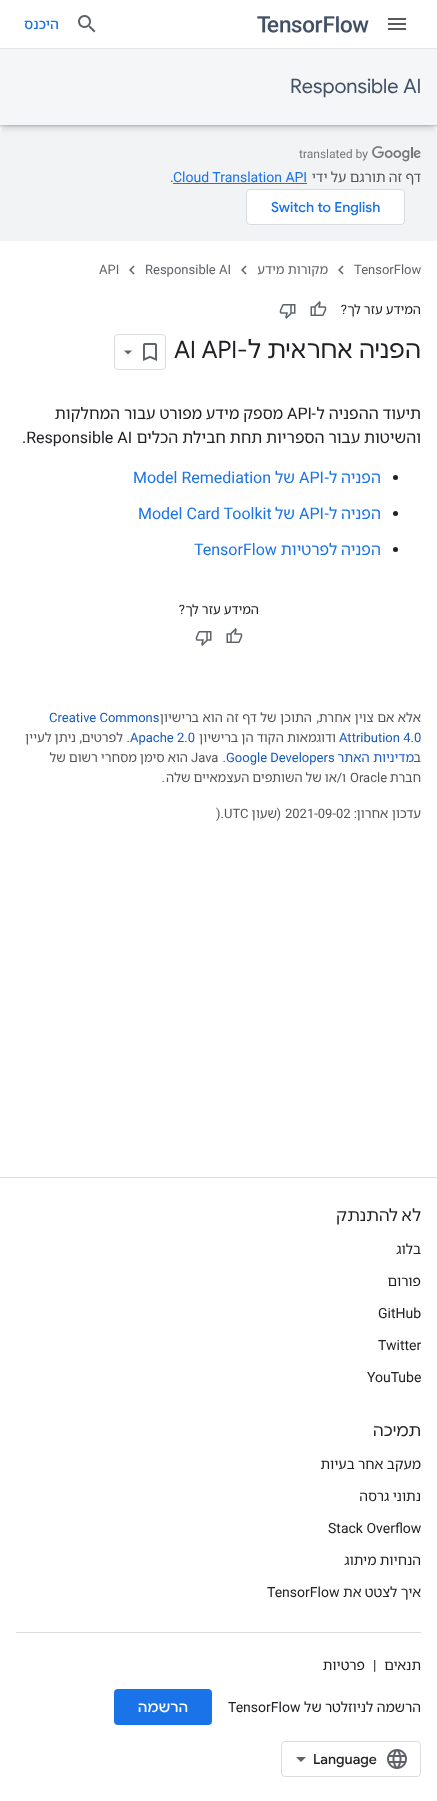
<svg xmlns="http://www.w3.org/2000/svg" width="437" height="1801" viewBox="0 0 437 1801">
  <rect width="100%" height="100%" fill="#fff"/>
  <path d="M10 125H427C432.5 125 437 129.5 437 135V241H0V135C0 129.5 4.5 125 10 125Z" fill="#f1f3f4"/>
  <path d="M-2 49h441v80H-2z" fill="#3c404326" filter="blur(3px)"/>
  <path d="M0 50h437v76H0z" fill="#3c40434d" filter="blur(1px)"/>
  <path d="M0 45h437v3H0z" fill="#fff"/>
  <path d="M0 48h437v1H0z" fill="#e6e6e6"/>
  <image x="388" y="18" width="18" height="12" href="img/1.png"/>
  <image x="257" y="16" width="112" height="17" href="img/2.png"/>
  <image x="78" y="15" width="18" height="18" href="img/3.png"/>
  <path d="M0 49h437v76H0z" fill="#f5f6f7"/>
  <image x="299" y="146" width="122" height="16" href="img/4.png"/>
  <path d="M173 183h134v1H173z" fill="#1a73e8"/>
  <rect x="246.5" y="189.5" width="158" height="35" rx="3.5" fill="#fff" stroke="#dadce0"/>
  <image x="338" y="265" width="6" height="10" href="img/5.png"/>
  <image x="241" y="265" width="6" height="10" href="img/5.png"/>
  <image x="129" y="265" width="6" height="10" href="img/5.png"/>
  <image x="310" y="301" width="17" height="15" href="img/6.png"/>
  <image x="279" y="304" width="17" height="15" href="img/7.png"/>
  <rect x="114.5" y="334.5" width="51" height="35" rx="3.5" fill="none" stroke="#dadce0"/>
  <image x="143" y="343" width="14" height="18" href="img/8.png"/>
  <path d="M124 350.5H132L128 354.5Z" fill="#5f6368"/>
  <circle cx="395.5" cy="477.5" r="2.5" fill="#202124"/>
  <circle cx="395.5" cy="513.5" r="2.5" fill="#202124"/>
  <circle cx="395.5" cy="549.5" r="2.5" fill="#202124"/>
  <image x="226" y="628" width="17" height="15" href="img/6.png"/>
  <image x="195" y="631" width="17" height="15" href="img/7.png"/>
  <path d="M0 1177h437v1H0z" fill="#dadce0"/>
  <path d="M16 1632h405v1H16z" fill="#dadce0"/>
  <rect x="114" y="1689" width="98" height="36" rx="4" fill="#1a73e8"/>
  <rect x="281.5" y="1741.5" width="139" height="35" rx="3.5" fill="none" stroke="#dadce0"/>
  <image x="387" y="1749" width="20" height="20" href="img/9.png"/>
  <path d="M301 1762L296 1757H306Z" fill="#5f6368"/>
  <text x="59" y="29" font-family="Noto Sans Hebrew" font-size="14" font-weight="500" direction="rtl" fill="#1a73e8">היכנס</text>
  <text x="290" y="93" font-family="Google Sans" font-size="20" fill="#425066">Responsible AI</text>
  <text x="421" y="182" word-spacing="-0.5" font-family="Noto Sans Hebrew" font-size="14" direction="rtl" fill="#545555">דף זה תורגם על ידי</text>
  <text x="173" y="182" font-family="Roboto" font-size="14" fill="#1a73e8">Cloud Translation API</text>
  <text x="170" y="182" font-family="Roboto" font-size="14" fill="#545555">.</text>
  <text x="271" y="212" font-family="Google Sans" font-size="14" font-weight="500" fill="#1a73e8">Switch to English</text>
  <text x="354" y="274" font-family="Roboto" font-size="13" fill="#5f6368">TensorFlow</text>
  <text x="328" y="274" font-family="Noto Sans Hebrew" font-size="13" direction="rtl" fill="#5f6368">מקורות מידע</text>
  <g font-family="Roboto" font-size="13" fill="#5f6368">
    <text x="145" y="274">Responsible AI</text>
    <text x="99" y="274">API</text>
  </g>
  <text x="421" y="314" word-spacing="-0.5" font-family="Noto Sans Hebrew" font-size="13" direction="rtl" fill="#202124">המידע עזר לך</text>
  <text x="347" y="314" font-family="Roboto" font-size="13" direction="rtl" fill="#202124">?</text>
  <text x="421" y="358" font-family="Google Sans" font-size="24" direction="rtl" fill="#202124">הפניה אחראית ל-</text>
  <text x="174" y="358" font-family="Google Sans" font-size="24" fill="#202124">AI API</text>
  <text x="421" y="419" word-spacing="-0.5" font-family="Noto Sans Hebrew" font-size="16" direction="rtl" fill="#202124">תיעוד ההפניה ל</text>
  <text x="316" y="419" font-family="Roboto" font-size="16" direction="rtl" fill="#202124">-</text>
  <text x="287" y="419" font-family="Roboto" font-size="16" fill="#202124">API</text>
  <g font-family="Noto Sans Hebrew" font-size="16" direction="rtl" fill="#202124">
    <text x="283" y="419" word-spacing="-0.5">מספק מידע מפורט עבור המחלקות</text>
    <text x="421" y="443" word-spacing="-0.5">והשיטות עבור הספריות תחת חבילת הכלים</text>
  </g>
  <text x="22" y="443" font-family="Roboto" font-size="16" fill="#202124">.Responsible AI</text>
  <text x="381" y="483" word-spacing="-0.5" font-family="Noto Sans Hebrew" font-size="16" direction="rtl" fill="#1a73e8">הפניה ל</text>
  <text x="329" y="483" font-family="Roboto" font-size="16" direction="rtl" fill="#1a73e8">-</text>
  <text x="299" y="483" font-family="Roboto" font-size="16" fill="#1a73e8">API</text>
  <text x="295" y="483" font-family="Noto Sans Hebrew" font-size="16" direction="rtl" fill="#1a73e8">של</text>
  <text x="133" y="483" font-family="Roboto" font-size="16" fill="#1a73e8">Model Remediation</text>
  <text x="381" y="519" word-spacing="-0.5" font-family="Noto Sans Hebrew" font-size="16" direction="rtl" fill="#1a73e8">הפניה ל</text>
  <text x="329" y="519" font-family="Roboto" font-size="16" direction="rtl" fill="#1a73e8">-</text>
  <text x="299" y="519" font-family="Roboto" font-size="16" fill="#1a73e8">API</text>
  <text x="295" y="519" font-family="Noto Sans Hebrew" font-size="16" direction="rtl" fill="#1a73e8">של</text>
  <text x="138" y="519" font-family="Roboto" font-size="16" fill="#1a73e8">Model Card Toolkit</text>
  <text x="381" y="555" word-spacing="-0.5" font-family="Noto Sans Hebrew" font-size="16" direction="rtl" fill="#1a73e8">הפניה לפרטיות</text>
  <text x="194" y="555" font-family="Roboto" font-size="16" fill="#1a73e8">TensorFlow</text>
  <text x="259" y="614" word-spacing="-0.5" font-family="Noto Sans Hebrew" font-size="13" direction="rtl" fill="#202124">המידע עזר לך</text>
  <text x="185" y="614" font-family="Roboto" font-size="13" direction="rtl" fill="#202124">?</text>
  <text x="421" y="722" font-family="Noto Sans Hebrew" font-size="13" direction="rtl" fill="#545555">אלא אם צוין אחרת</text>
  <text x="319" y="722" font-family="Roboto" font-size="13" direction="rtl" fill="#545555">,</text>
  <text x="312" y="722" font-family="Noto Sans Hebrew" font-size="13" direction="rtl" fill="#545555">התוכן של דף זה הוא ברישיון</text>
  <g font-family="Roboto" font-size="13" fill="#185abc">
    <text x="49" y="722">Creative Commons</text>
    <text x="339" y="742">Attribution 4.0</text>
  </g>
  <text x="336" y="742" word-spacing="-0.5" font-family="Noto Sans Hebrew" font-size="13" direction="rtl" fill="#545555">ודוגמאות הקוד הן ברישיון</text>
  <text x="130" y="742" font-family="Roboto" font-size="13" fill="#185abc">Apache 2.0</text>
  <text x="130" y="742" font-family="Roboto" font-size="13" direction="rtl" fill="#545555">.</text>
  <text x="123" y="742" font-family="Noto Sans Hebrew" font-size="13" direction="rtl" fill="#545555">לפרטים</text>
  <text x="82" y="742" font-family="Roboto" font-size="13" direction="rtl" fill="#545555">,</text>
  <g font-family="Noto Sans Hebrew" font-size="13" direction="rtl" fill="#545555">
    <text x="76" y="742" word-spacing="-0.5">ניתן לעיין</text>
    <text x="421" y="762">ב</text>
  </g>
  <text x="414" y="762" font-family="Noto Sans Hebrew" font-size="13" direction="rtl" fill="#185abc">מדיניות האתר</text>
  <text x="226" y="762" font-family="Roboto" font-size="13" fill="#185abc">Google Developers</text>
  <text x="226" y="762" font-family="Roboto" font-size="13" direction="rtl" fill="#545555">.</text>
  <text x="191" y="762" font-family="Roboto" font-size="13" fill="#545555">Java</text>
  <g font-family="Noto Sans Hebrew" font-size="13" direction="rtl" fill="#545555">
    <text x="188" y="762" word-spacing="-0.5">הוא סימן מסחרי רשום של</text>
    <text x="421" y="782">חברת</text>
  </g>
  <text x="350" y="782" font-family="Roboto" font-size="13" fill="#545555">Oracle</text>
  <text x="337" y="782" word-spacing="-0.5" font-family="Noto Sans Hebrew" font-size="13" direction="rtl" fill="#545555">או של השותפים העצמאיים שלה</text>
  <text x="342" y="782" font-family="Roboto" font-size="13" direction="rtl" fill="#545555">/</text>
  <text x="346" y="782" font-family="Noto Sans Hebrew" font-size="13" direction="rtl" fill="#545555">ו</text>
  <text x="165" y="782" font-family="Roboto" font-size="13" direction="rtl" fill="#545555">.</text>
  <text x="421" y="818" font-family="Noto Sans Hebrew" font-size="13" direction="rtl" fill="#545555">עדכון אחרון</text>
  <text x="357" y="818" font-family="Roboto" font-size="13" direction="rtl" fill="#545555">:</text>
  <text x="285" y="818" font-family="Roboto" font-size="13" fill="#545555">2021-09-02</text>
  <text x="281" y="818" font-family="Roboto" font-size="13" direction="rtl" fill="#545555">(</text>
  <text x="277" y="818" font-family="Noto Sans Hebrew" font-size="13" direction="rtl" fill="#545555">שעון</text>
  <text x="216" y="818" font-family="Roboto" font-size="13" fill="#545555">).UTC</text>
  <text x="421" y="1221" font-family="Google Sans" font-size="16" direction="rtl" fill="#202124">לא להתנתק</text>
  <g font-family="Noto Sans Hebrew" font-size="14" direction="rtl" fill="#202124">
    <text x="421" y="1254">בלוג</text>
    <text x="421" y="1286">פורום</text>
  </g>
  <g font-family="Roboto" font-size="14" fill="#202124">
    <text x="378" y="1318">GitHub</text>
    <text x="378" y="1350">Twitter</text>
    <text x="367" y="1382">YouTube</text>
  </g>
  <text x="421" y="1436" font-family="Google Sans" font-size="16" direction="rtl" fill="#202124">תמיכה</text>
  <g font-family="Noto Sans Hebrew" font-size="14" direction="rtl" fill="#202124">
    <text x="421" y="1469" word-spacing="-0.5">מעקב אחר בעיות</text>
    <text x="421" y="1501" word-spacing="-0.5">נתוני גרסה</text>
  </g>
  <text x="328" y="1533" font-family="Roboto" font-size="14" fill="#202124">Stack Overflow</text>
  <g font-family="Noto Sans Hebrew" font-size="14" direction="rtl" fill="#202124">
    <text x="421" y="1565" word-spacing="-0.5">הנחיות מיתוג</text>
    <text x="421" y="1597" word-spacing="-0.5">איך לצטט את</text>
  </g>
  <text x="267" y="1597" font-family="Roboto" font-size="14" fill="#202124">TensorFlow</text>
  <text x="421" y="1670" font-family="Noto Sans Hebrew" font-size="14" direction="rtl" fill="#202124">תנאים</text>
  <text x="373" y="1670" font-family="Roboto" font-size="14" fill="#202124">|</text>
  <g font-family="Noto Sans Hebrew" font-size="14" direction="rtl" fill="#202124">
    <text x="365" y="1670">פרטיות</text>
    <text x="421" y="1712" word-spacing="-0.5">הרשמה לניוזלטר של</text>
  </g>
  <text x="228" y="1712" font-family="Roboto" font-size="14" fill="#202124">TensorFlow</text>
  <text x="188" y="1712" font-family="Google Sans" font-size="14" font-weight="500" direction="rtl" fill="#fff">הרשמה</text>
  <text x="313" y="1764" font-family="Google Sans" font-size="14" font-weight="500" fill="#202124">Language</text>
</svg>
